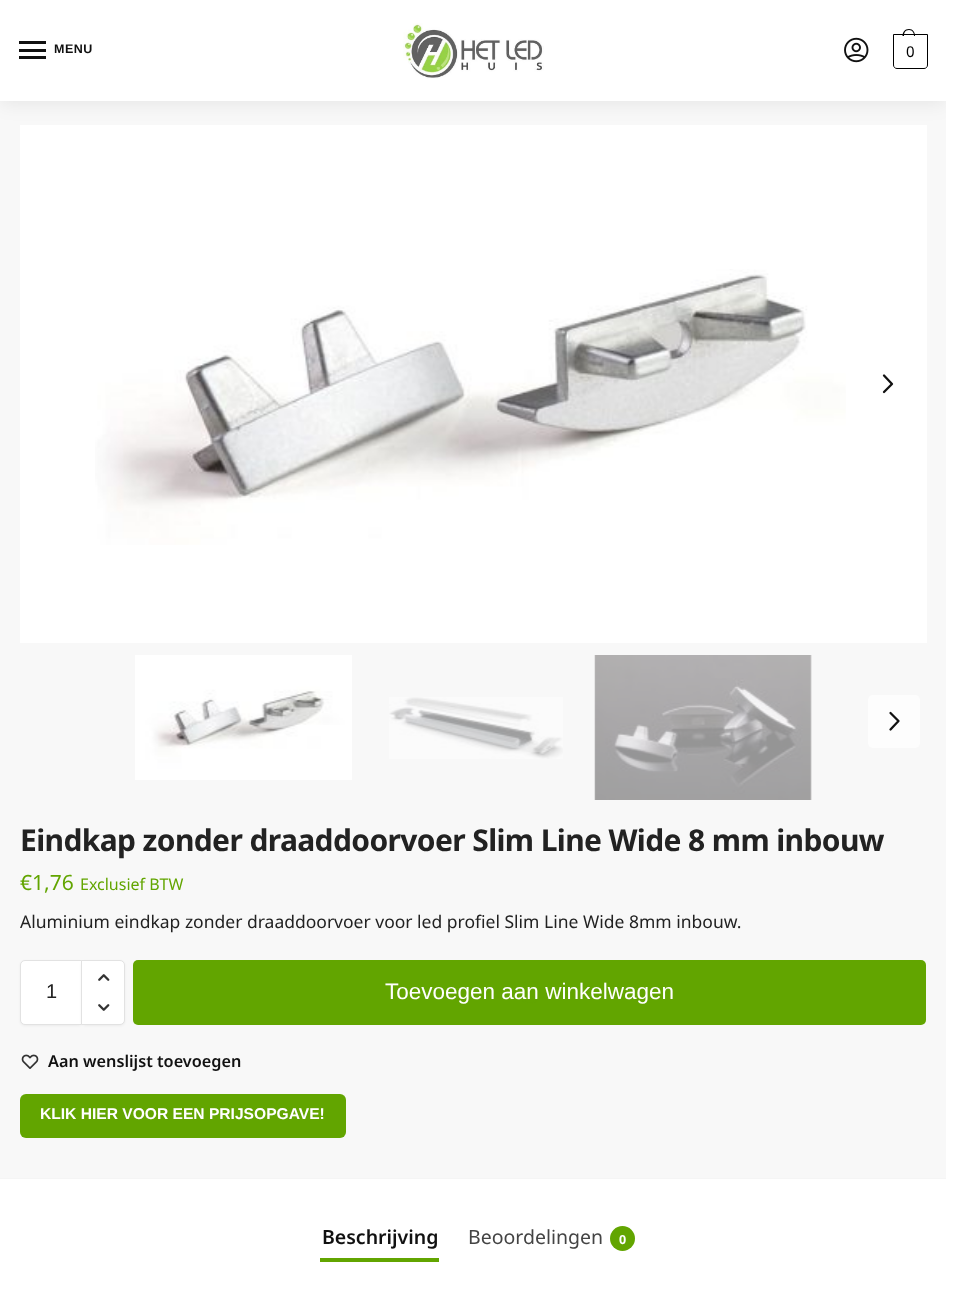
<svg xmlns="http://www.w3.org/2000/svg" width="964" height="1290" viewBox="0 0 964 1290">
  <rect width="100%" height="100%" fill="#f8f8f8"/>
  <path d="M20 125h907v518H20z" fill="#fff"/>
  <path d="M0 1h946v102H0z" fill="#00000014" filter="blur(9.5px)"/>
  <path d="M0 0h946v101H0z" fill="#fff"/>
  <path d="M19 41h27v3H19z" fill="#111"/>
  <path d="M19 49h27v3H19z" fill="#111"/>
  <path d="M19 56h27v3H19z" fill="#111"/>
  <image x="403" y="23" width="141" height="56" href="img/1.png"/>
  <image x="844" y="37" width="25" height="26" href="img/2.png"/>
  <path d="M893.5 34.5H927.5V65C927.5 67 926 68.5 924 68.5H897C895 68.5 893.5 67 893.5 65Z" fill="none" stroke="#000"/>
  <path d="M909 29C913 29 915 32.5 915 36H902.5C902.5 32.5 904.5 29 909 29ZM909 30C912.5 30 914 33 914 36H904C904 33 905 30 909 30Z" fill="#000" fill-rule="evenodd"/>
  <path d="M946 0h18v1290H946z" fill="#fff"/>
  <image x="95" y="269" width="751" height="276" href="img/3.png"/>
  <path d="M884 392L892 384L884 375.5" fill="none" stroke="#111" stroke-width="2.3" stroke-linecap="round" stroke-linejoin="round"/>
  <image x="135" y="655" width="217" height="125" href="img/4.png"/>
  <image x="389" y="697" width="174" height="62" href="img/5.png"/>
  <image x="594" y="655" width="218" height="145" href="img/6.png"/>
  <rect x="868" y="695" width="52" height="53" rx="5" fill="#fdfdfd"/>
  <path d="M890.5 729.5L898.5 721L890.5 713" fill="none" stroke="#111" stroke-width="2.3" stroke-linecap="round" stroke-linejoin="round"/>
  <rect x="20" y="961" width="63" height="65" rx="5" fill="#0000000d" filter="blur(1px)"/>
  <path d="M25 960.5H82.5V1024.5H25C22.5 1024.5 20.5 1022.5 20.5 1020V965C20.5 962.5 22.5 960.5 25 960.5Z" fill="#fff" stroke="#e2e2e2"/>
  <rect x="81" y="961" width="44" height="65" rx="5" fill="#0000000d" filter="blur(1px)"/>
  <path d="M81.5 960.5H120C122.5 960.5 124.5 962.5 124.5 965V1020C124.5 1022.5 122.5 1024.5 120 1024.5H81.5Z" fill="#fff" stroke="#e2e2e2"/>
  <image x="98" y="974" width="12" height="7" href="img/7.png"/>
  <image x="98" y="1004" width="12" height="7" href="img/8.png"/>
  <rect x="133" y="960" width="793" height="65" rx="5" fill="#62a500"/>
  <image x="21" y="1054" width="18" height="15" href="img/9.png"/>
  <rect x="20" y="1094" width="326" height="44" rx="6" fill="#62a500"/>
  <path d="M0 1179h946v111H0z" fill="#fff"/>
  <path d="M0 1178h946v1H0z" fill="#f5f5f5"/>
  <path d="M320 1258h119v4H320z" fill="#62a500"/>
  <circle cx="622.5" cy="1238.5" r="12.5" fill="#62a500"/>
  <text x="54" y="53" font-family="Liberation Sans" font-size="12.5" font-weight="bold" letter-spacing="0.5" fill="#111">MENU</text>
  <text x="906" y="57" font-family="Noto Sans" font-size="15" letter-spacing="-1" fill="#000">0</text>
  <text x="20" y="851" font-family="Noto Sans" font-size="30" font-weight="bold" letter-spacing="-0.62" fill="#222">Eindkap zonder draaddoorvoer Slim Line Wide 8 mm inbouw</text>
  <text x="20" y="890" font-family="Noto Sans" font-size="21" fill="#62a500">€1,76</text>
  <text x="80" y="890" font-family="Noto Sans" font-size="16" fill="#62a500">Exclusief BTW</text>
  <text x="20" y="928" font-family="Noto Sans" font-size="17.5" fill="#222">Aluminium eindkap zonder draaddoorvoer voor led profiel Slim Line Wide 8mm inbouw.</text>
  <text x="46" y="998" font-family="Liberation Sans" font-size="20" fill="#222">1</text>
  <text x="385" y="999" font-family="Liberation Sans" font-size="22.5" fill="#fff">Toevoegen aan winkelwagen</text>
  <path d="M522.5 985C525 982.5 528.5 981.5 532 982C544.5 984.5 542.5 1003 530 1003C527 1003 524.5 1002 522.5 1000" fill="none" stroke="#62a500" stroke-width="1.2"/>
  <text x="48" y="1067" font-family="Noto Sans" font-size="16.25" font-weight="600" fill="#111">Aan wenslijst toevoegen</text>
  <text x="40" y="1119" font-family="Liberation Sans" font-size="15.6" font-weight="bold" fill="#fff">KLIK HIER VOOR EEN PRIJSOPGAVE!</text>
  <text x="322" y="1244" font-family="Noto Sans" font-size="19.5" font-weight="600" fill="#111">Beschrijving</text>
  <text x="468" y="1244" font-family="Noto Sans" font-size="19.5" fill="#444">Beoordelingen</text>
  <text x="619" y="1244" font-family="Noto Sans" font-size="12.5" font-weight="bold" fill="#fff">0</text>
</svg>
